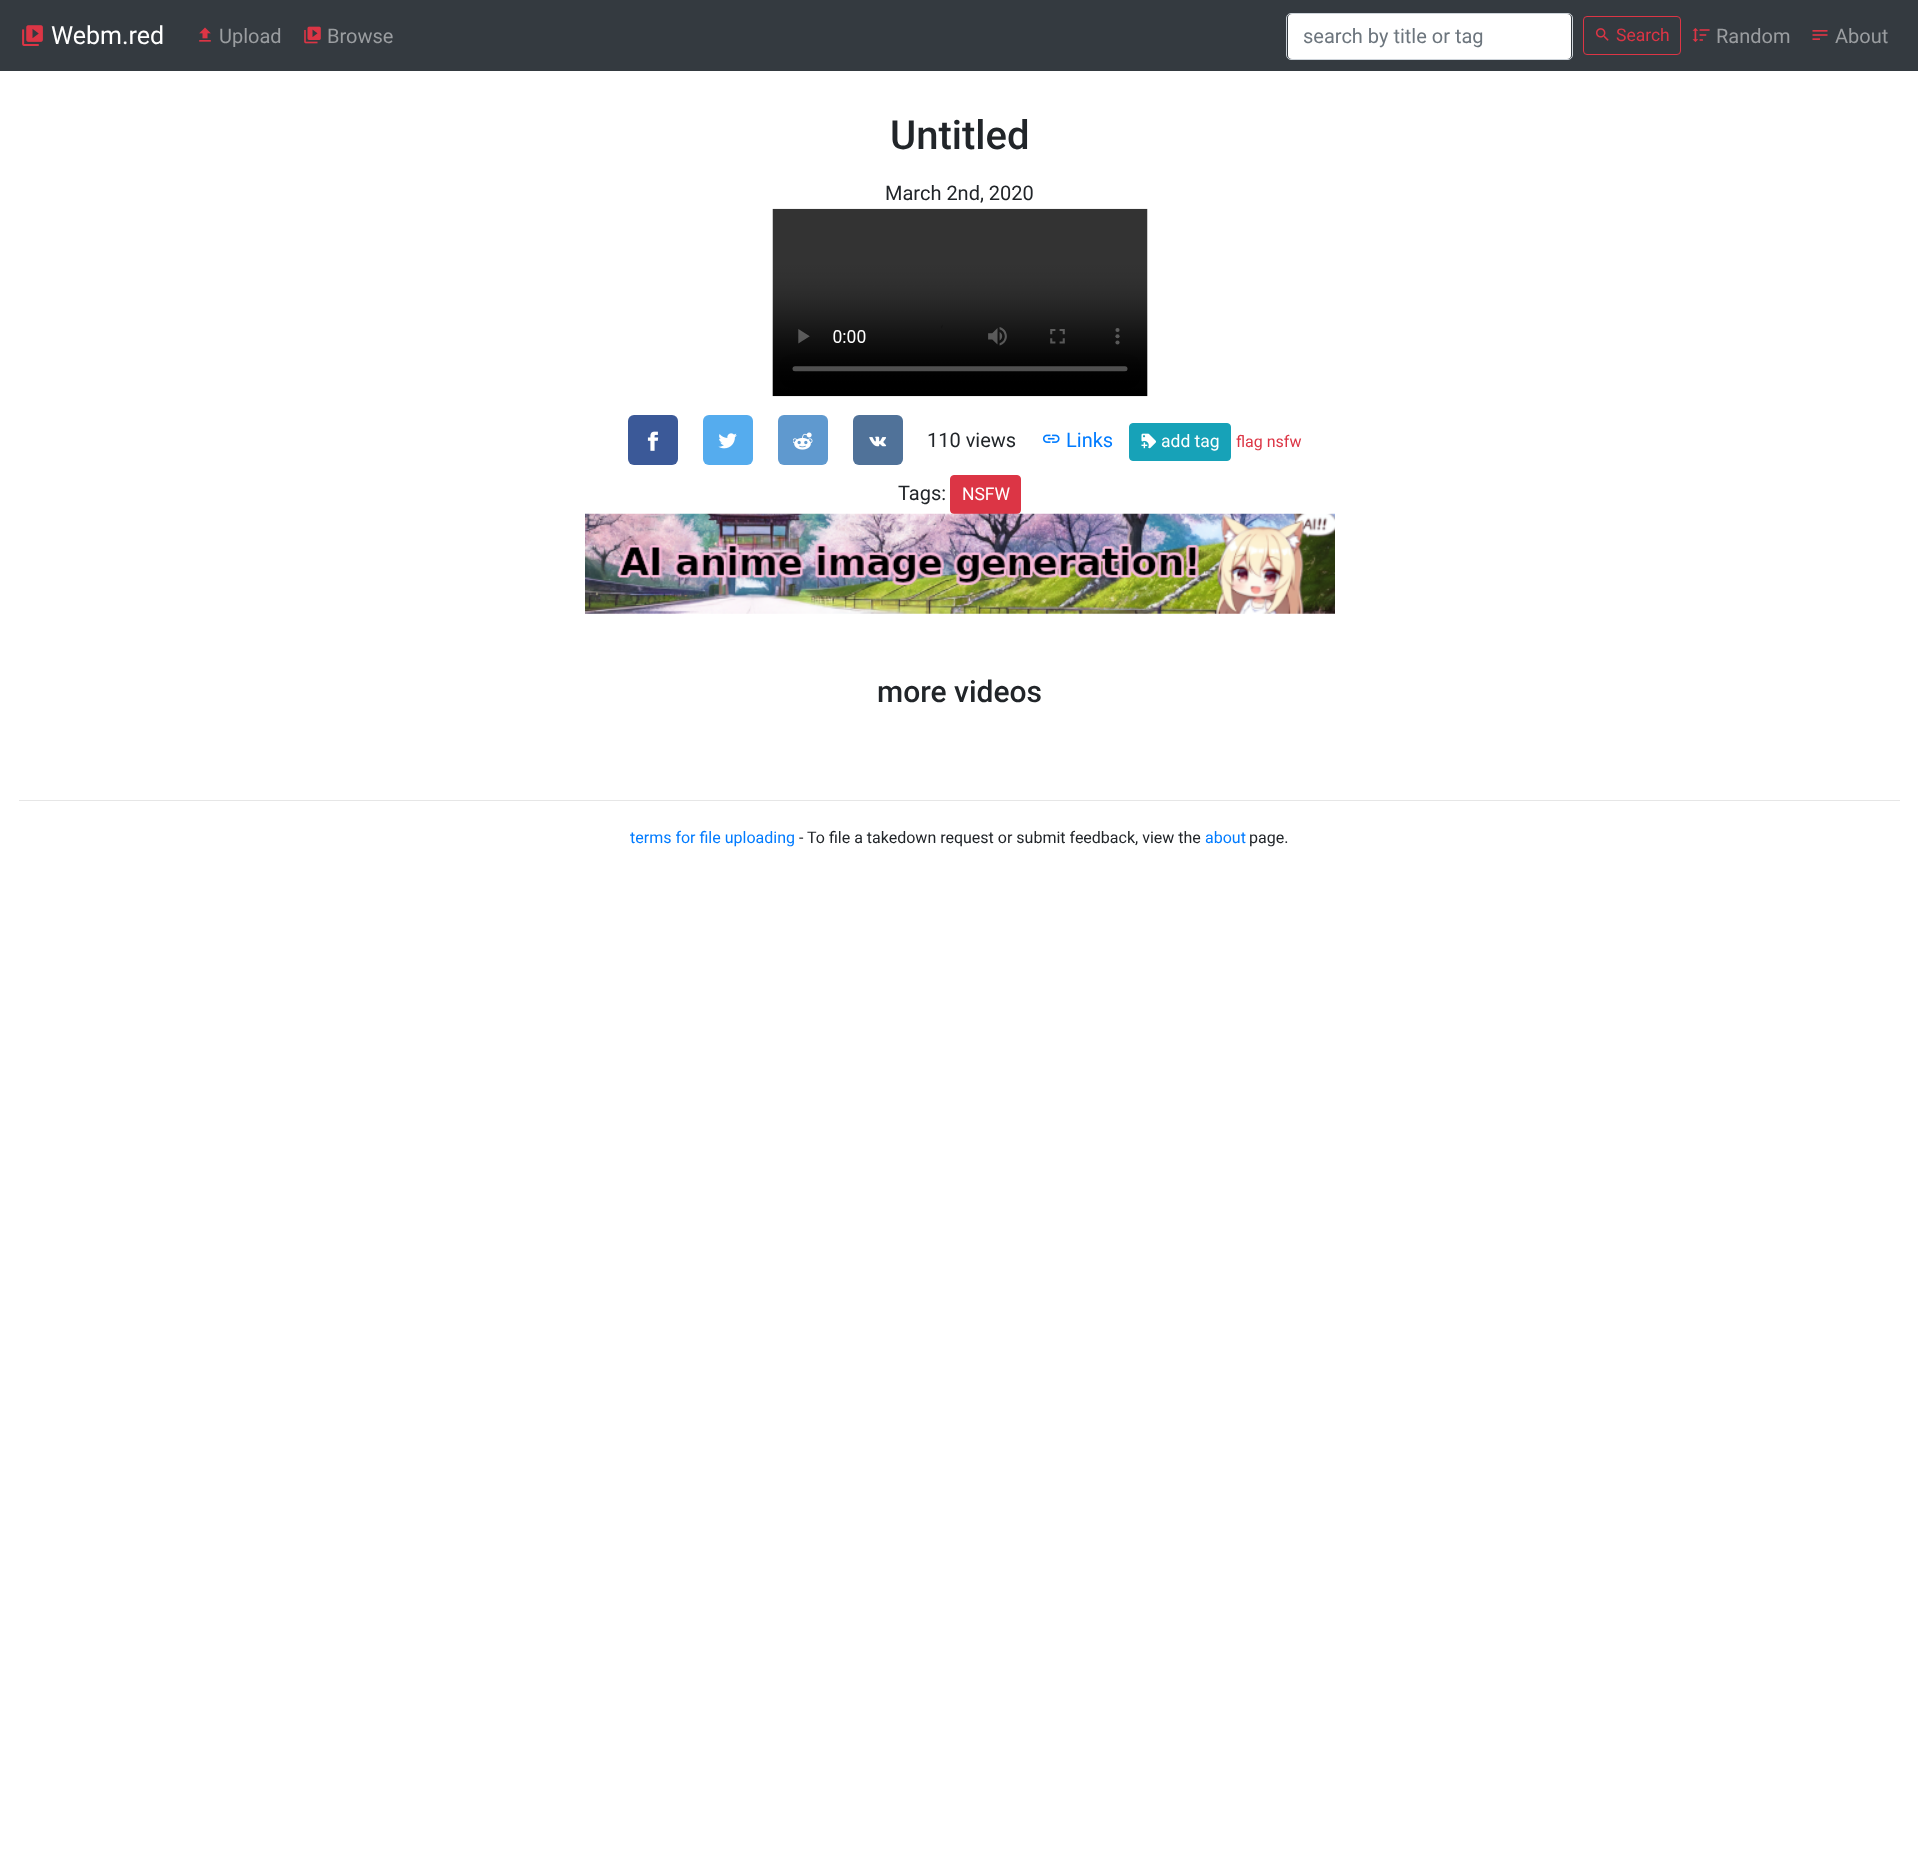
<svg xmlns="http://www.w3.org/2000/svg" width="1918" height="1868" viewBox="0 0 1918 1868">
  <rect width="100%" height="100%" fill="#fff"/>
  <path d="M0 0h1918v71H0z" fill="#343a40"/>
  <image x="22" y="25" width="21" height="21" href="img/1.png"/>
  <image x="199" y="27" width="12" height="15" href="img/2.png"/>
  <image x="304" y="26" width="17" height="18" href="img/3.png"/>
  <rect x="1288" y="14" width="283" height="45" rx="4" fill="#fff"/>
  <rect x="1286.5" y="13.5" width="286" height="46" rx="4.5" fill="none" stroke="#ced4da"/>
  <rect x="1583.5" y="16.5" width="97" height="38" rx="3.5" fill="none" stroke="#dc3545"/>
  <image x="1595" y="28" width="14" height="13" href="img/4.png"/>
  <image x="1692" y="28" width="18" height="14" href="img/5.png"/>
  <image x="1812" y="30" width="16" height="10" href="img/6.png"/>
  <image x="772" y="208" width="376" height="189" href="img/7.png"/>
  <rect x="628" y="415" width="50" height="50" rx="6" fill="#3b5998"/>
  <image x="647" y="431" width="12" height="20" href="img/8.png"/>
  <rect x="703" y="415" width="50" height="50" rx="6" fill="#55acee"/>
  <image x="718" y="433" width="19" height="16" href="img/9.png"/>
  <rect x="778" y="415" width="50" height="50" rx="6" fill="#5f99cf"/>
  <image x="793" y="432" width="20" height="18" href="img/10.png"/>
  <rect x="853" y="415" width="50" height="50" rx="6" fill="#507299"/>
  <image x="869" y="436" width="18" height="11" href="img/11.png"/>
  <image x="1042" y="434" width="18" height="9" href="img/12.png"/>
  <rect x="1129.5" y="423.5" width="101" height="37" rx="3.5" fill="#17a2b8" stroke="#17a2b8"/>
  <image x="1141" y="433" width="15" height="16" href="img/13.png"/>
  <rect x="950.5" y="475.5" width="70" height="38" rx="3.5" fill="#dc3545" stroke="#dc3545"/>
  <image x="585" y="513" width="750" height="101" href="img/14.png"/>
  <path d="M19 800h1881v1H19z" fill="#e6e6e6"/>
  <text x="51" y="44" font-family="Roboto" font-size="25" fill="#fff">Webm.red</text>
  <g font-family="Roboto" font-size="20" fill="#9a9da0">
    <text x="219" y="43">Upload</text>
    <text x="327" y="43">Browse</text>
  </g>
  <text x="1303" y="43" font-family="Roboto" font-size="20" fill="#6c757d">search by title or tag</text>
  <text x="1616" y="41" font-family="Roboto" font-size="17.5" fill="#dc3545">Search</text>
  <g font-family="Roboto" font-size="20" fill="#9a9da0">
    <text x="1716" y="43">Random</text>
    <text x="1835" y="43">About</text>
  </g>
  <text x="890" y="149" font-family="Roboto" font-size="40" font-weight="500" fill="#212529">Untitled</text>
  <g font-family="Roboto" font-size="20" fill="#212529">
    <text x="885" y="200">March 2nd, 2020</text>
    <text x="927" y="447">110 views</text>
  </g>
  <text x="1066" y="447" font-family="Roboto" font-size="20" fill="#007bff">Links</text>
  <text x="1161" y="447" font-family="Roboto" font-size="17.5" fill="#fff">add tag</text>
  <text x="1236" y="447" font-family="Roboto" font-size="16" fill="#dc3545">flag nsfw</text>
  <text x="898" y="500" font-family="Roboto" font-size="20" fill="#212529">Tags:</text>
  <text x="962" y="500" font-family="Roboto" font-size="17.5" fill="#fff">NSFW</text>
  <text x="877" y="702" font-family="Roboto" font-size="30" font-weight="500" fill="#212529">more videos</text>
  <text x="630" y="843" font-family="Roboto" font-size="16" fill="#007bff">terms for file uploading</text>
  <text x="799" y="843" font-family="Roboto" font-size="16" fill="#212529">- To file a takedown request or submit feedback, view the</text>
  <text x="1205" y="843" font-family="Roboto" font-size="16" fill="#007bff">about</text>
  <text x="1249" y="843" font-family="Roboto" font-size="16" fill="#212529">page.</text>
</svg>
